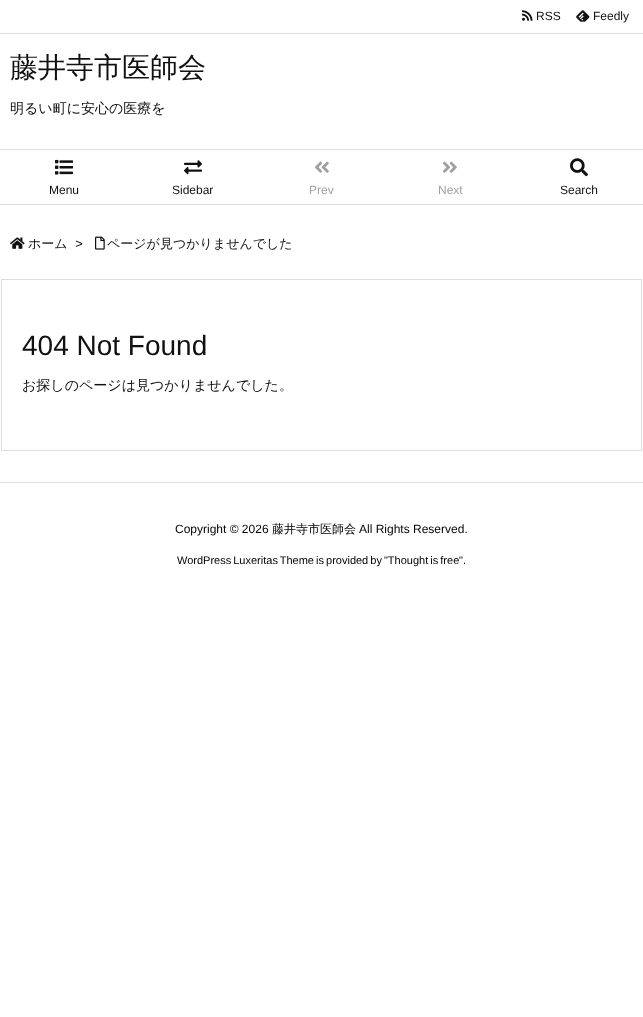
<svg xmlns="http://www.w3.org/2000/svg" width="643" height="1017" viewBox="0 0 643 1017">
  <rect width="100%" height="100%" fill="#fff"/>
  <path d="M0 33h643v1H0z" fill="#ddd"/>
  <image x="522" y="10" width="11" height="11" href="img/1.png"/>
  <image x="576" y="10" width="14" height="12" href="img/2.png"/>
  <path d="M0 149h643v1H0z" fill="#ddd"/>
  <path d="M0 204h643v1H0z" fill="#ddd"/>
  <image x="55" y="159" width="18" height="16" href="img/3.png"/>
  <image x="184" y="160" width="18" height="15" href="img/4.png"/>
  <image x="315" y="161" width="14" height="12" href="img/5.png"/>
  <image x="443" y="161" width="14" height="12" href="img/6.png"/>
  <image x="570" y="158" width="18" height="19" href="img/7.png"/>
  <image x="10" y="237" width="15" height="12" href="img/8.png"/>
  <image x="95" y="236" width="10" height="14" href="img/9.png"/>
  <path d="M1.5 279.5h640v171H1.5z" fill="none" stroke="#ddd"/>
  <path d="M0 482h643v1H0z" fill="#ddd"/>
  <g font-family="Liberation Sans" font-size="12" fill="#111">
    <text x="536" y="20">RSS</text>
    <text x="593" y="20">Feedly</text>
    <text x="49" y="194">Menu</text>
    <text x="172" y="194">Sidebar</text>
  </g>
  <g font-family="Liberation Sans" font-size="12" fill="#a0a0a0">
    <text x="309" y="194">Prev</text>
    <text x="438" y="194">Next</text>
  </g>
  <text x="560" y="194" font-family="Liberation Sans" font-size="12" fill="#111">Search</text>
  <text x="10" y="77" font-family="WenQuanYi Zen Hei" font-size="28" font-weight="500" fill="#111">藤井寺市医師会</text>
  <text x="10" y="113" font-family="WenQuanYi Zen Hei" font-size="14" font-weight="500" fill="#111">明るい町に安心の医療を</text>
  <text x="28" y="248" font-family="WenQuanYi Zen Hei" font-size="13" font-weight="500" fill="#111">ホーム</text>
  <text x="75" y="248" font-family="Liberation Sans" font-size="13" font-style="italic" fill="#111">&gt;</text>
  <text x="107" y="248" font-family="WenQuanYi Zen Hei" font-size="13" font-weight="500" fill="#111">ページが見つかりませんでした</text>
  <text x="22" y="355" font-family="Liberation Sans" font-size="28" fill="#111">404 Not Found</text>
  <text x="22" y="390" font-family="WenQuanYi Zen Hei" font-size="14" font-weight="500" fill="#111">お探しのページは見つかりませんでした。</text>
  <text x="175" y="533" font-family="Liberation Sans" font-size="12" fill="#000">Copyright © 2026</text>
  <text x="272" y="533" font-family="WenQuanYi Zen Hei" font-size="12" font-weight="500" fill="#000">藤井寺市医師会</text>
  <text x="359" y="533" font-family="Liberation Sans" font-size="12" fill="#000">All Rights Reserved.</text>
  <g font-family="Liberation Sans" font-size="11" fill="#000">
    <text x="177" y="564" word-spacing="-1">WordPress Luxeritas Theme is provided by "Thought is free</text>
    <text x="459" y="564">".</text>
  </g>
</svg>
